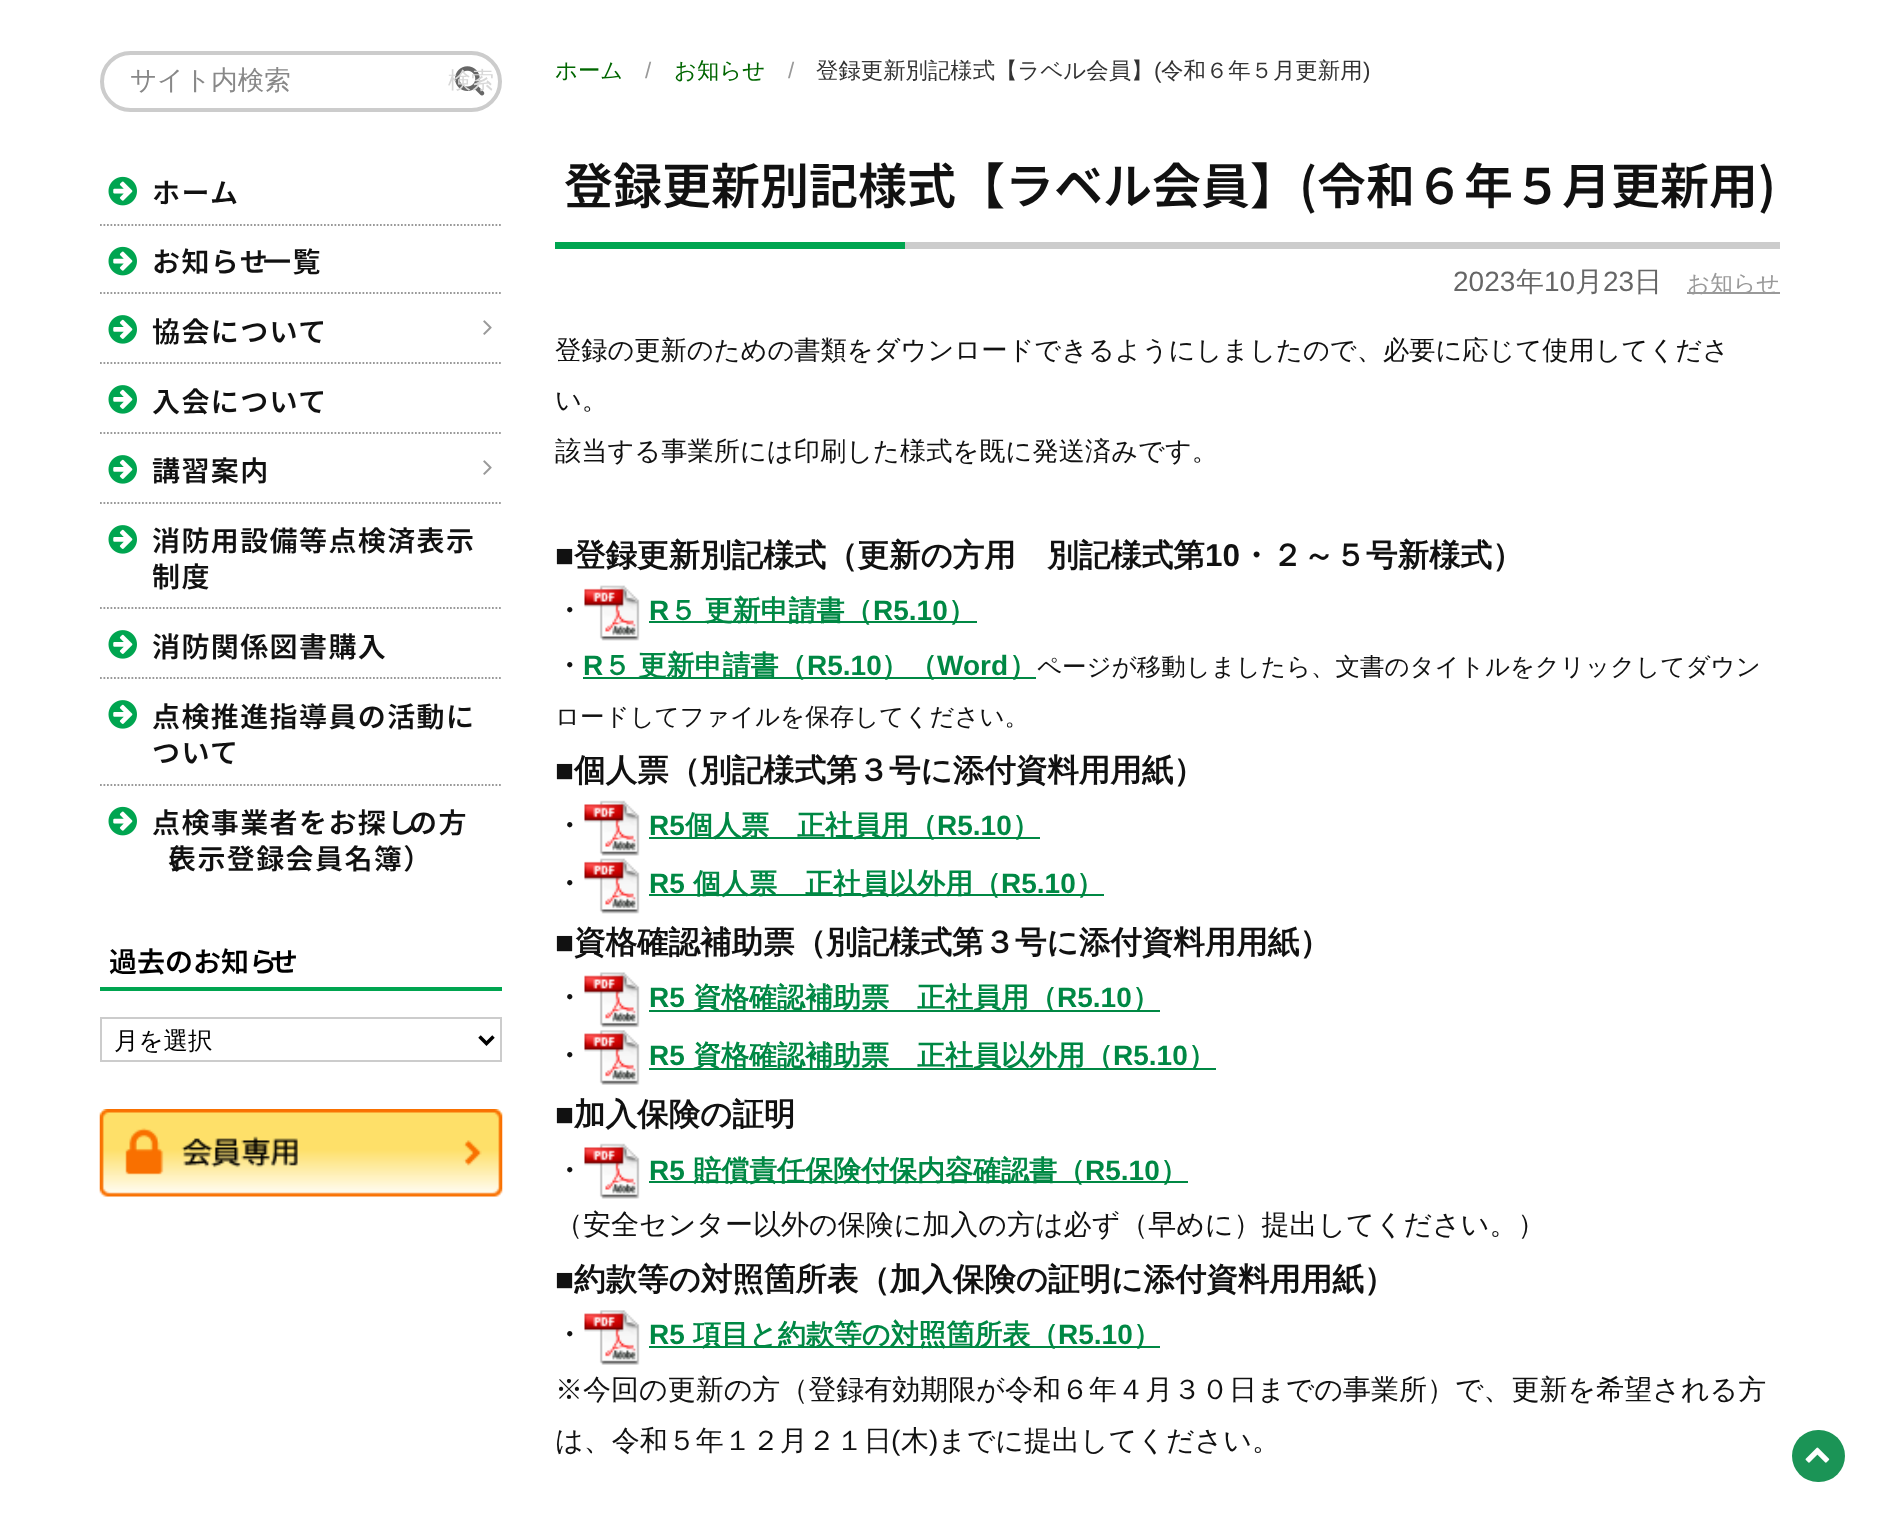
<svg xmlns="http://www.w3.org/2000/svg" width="1878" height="1515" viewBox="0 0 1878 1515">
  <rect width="100%" height="100%" fill="#fff"/>
  <rect x="102" y="53" width="398" height="57" rx="28.5" fill="none" stroke="#ccc" stroke-width="4"/>
  <image x="455" y="66" width="30" height="30" href="img/1.png"/>
  <path d="M100 225H502" fill="none" stroke="#999" stroke-width="1.8" stroke-dasharray="1.75 1.75"/>
  <image x="108" y="176" width="29" height="30" href="img/2.png"/>
  <path d="M100 293H502" fill="none" stroke="#999" stroke-width="1.8" stroke-dasharray="1.75 1.75"/>
  <image x="108" y="246" width="29" height="30" href="img/2.png"/>
  <path d="M100 363H502" fill="none" stroke="#999" stroke-width="1.8" stroke-dasharray="1.75 1.75"/>
  <image x="108" y="315" width="29" height="29" href="img/3.png"/>
  <image x="483" y="320" width="9" height="15" href="img/4.png"/>
  <path d="M100 433H502" fill="none" stroke="#999" stroke-width="1.8" stroke-dasharray="1.75 1.75"/>
  <image x="108" y="385" width="29" height="29" href="img/3.png"/>
  <path d="M100 503H502" fill="none" stroke="#999" stroke-width="1.8" stroke-dasharray="1.75 1.75"/>
  <image x="108" y="455" width="29" height="29" href="img/5.png"/>
  <image x="483" y="460" width="9" height="15" href="img/4.png"/>
  <path d="M100 608H502" fill="none" stroke="#999" stroke-width="1.8" stroke-dasharray="1.75 1.75"/>
  <image x="108" y="525" width="29" height="29" href="img/3.png"/>
  <path d="M100 678H502" fill="none" stroke="#999" stroke-width="1.8" stroke-dasharray="1.75 1.75"/>
  <image x="108" y="630" width="29" height="29" href="img/3.png"/>
  <path d="M100 785H502" fill="none" stroke="#999" stroke-width="1.8" stroke-dasharray="1.75 1.75"/>
  <image x="108" y="700" width="29" height="29" href="img/3.png"/>
  <image x="108" y="806" width="29" height="30" href="img/2.png"/>
  <path d="M100 987h402v4H100z" fill="#00a550"/>
  <path d="M101 1018h400v43H101z" fill="none" stroke="#ccc" stroke-width="2"/>
  <path d="M479.5 1036.5L486.5 1043.5L493.5 1036.5" fill="none" stroke="#000" stroke-width="3.5"/>
  <image x="99" y="1109" width="404" height="88" href="img/6.png"/>
  <path d="M905 242h875v7H905z" fill="#ccc"/>
  <path d="M555 242h350v7H555z" fill="#00a550"/>
  <path d="M1687 292h93v2H1687z" fill="#999"/>
  <image x="584" y="585" width="56" height="56" href="img/7.png"/>
  <path d="M649 621h328v2H649z" fill="#084"/>
  <path d="M583 677h453v2H583z" fill="#084"/>
  <image x="584" y="800" width="56" height="56" href="img/8.png"/>
  <path d="M649 837h391v2H649z" fill="#084"/>
  <image x="584" y="858" width="56" height="56" href="img/7.png"/>
  <path d="M649 894h455v2H649z" fill="#084"/>
  <image x="584" y="972" width="56" height="56" href="img/9.png"/>
  <path d="M649 1010h511v2H649z" fill="#084"/>
  <image x="584" y="1030" width="56" height="55" href="img/10.png"/>
  <path d="M649 1068h567v2H649z" fill="#084"/>
  <image x="584" y="1143" width="56" height="56" href="img/8.png"/>
  <path d="M649 1181h539v2H649z" fill="#084"/>
  <image x="584" y="1310" width="56" height="55" href="img/10.png"/>
  <path d="M649 1346h511v2H649z" fill="#084"/>
  <rect x="1792" y="1430" width="53" height="52" rx="26" fill="#1b9456"/>
  <image x="1805" y="1447" width="25" height="16" href="img/11.png"/>
  <text x="130" y="89" font-family="WenQuanYi Zen Hei" font-size="26.5" font-weight="500" fill="#888">サイト内検索</text>
  <text x="448" y="88" font-family="WenQuanYi Zen Hei" font-size="23" font-weight="500" fill="#d7d7d7">検索</text>
  <g font-family="Noto Sans JP" font-size="28" font-weight="600" letter-spacing="1.4" fill="#111">
    <text x="152" y="203">ホーム</text>
    <text x="152" y="272">お知らせ</text>
    <text x="263" y="272">一覧</text>
    <text x="152" y="342">協会について</text>
    <text x="152" y="412">入会について</text>
    <text x="152" y="481">講習案内</text>
    <text x="152" y="551">消防用設備等点検済表示</text>
    <text x="152" y="587">制度</text>
    <text x="152" y="657">消防関係図書購入</text>
    <text x="152" y="727">点検推進指導員の活動に</text>
    <text x="152" y="763">ついて</text>
    <text x="152" y="833">点検事業者をお探し</text>
    <text x="409" y="833">の方</text>
    <text x="152" y="869">（</text>
    <text x="168" y="869">表示登録会員名簿）</text>
  </g>
  <text x="109" y="972" font-family="Noto Sans JP" font-size="28" font-weight="600" fill="#000">過去のお知ら</text>
  <text x="270" y="972" font-family="Noto Sans JP" font-size="28" font-weight="600" fill="#000">せ</text>
  <text x="114" y="1049" font-family="WenQuanYi Zen Hei" font-size="24.5" font-weight="500" fill="#000">月を選択</text>
  <text x="555" y="78" font-family="WenQuanYi Zen Hei" font-size="22.4" font-weight="500" fill="#060">ホーム</text>
  <text x="645" y="78" font-family="Liberation Sans" font-size="22.4" fill="#999">/</text>
  <text x="674" y="78" font-family="WenQuanYi Zen Hei" font-size="22.4" font-weight="500" fill="#060">お知らせ</text>
  <text x="788" y="78" font-family="Liberation Sans" font-size="22.4" fill="#999">/</text>
  <text x="816" y="78" font-family="WenQuanYi Zen Hei" font-size="22.4" font-weight="500" fill="#333">登録更新別記様式【ラベル会員】</text>
  <text x="1154" y="78" font-family="Liberation Sans" font-size="22.4" fill="#333">(</text>
  <text x="1161" y="78" font-family="WenQuanYi Zen Hei" font-size="22.4" font-weight="500" fill="#333">令和６年５月更新用</text>
  <text x="1363" y="78" font-family="Liberation Sans" font-size="22.4" fill="#333">)</text>
  <text x="564" y="204" font-family="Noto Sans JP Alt" font-size="49" font-weight="600" fill="#111">登録更新別記様式【ラベル会員】(令和６年５月更新用)</text>
  <text x="1453" y="291" font-family="Liberation Sans" font-size="28" fill="#666">2023</text>
  <text x="1516" y="291" font-family="WenQuanYi Zen Hei" font-size="28" font-weight="500" fill="#666">年</text>
  <text x="1544" y="291" font-family="Liberation Sans" font-size="28" fill="#666">10</text>
  <text x="1575" y="291" font-family="WenQuanYi Zen Hei" font-size="28" font-weight="500" fill="#666">月</text>
  <text x="1603" y="291" font-family="Liberation Sans" font-size="28" fill="#666">23</text>
  <text x="1634" y="291" font-family="WenQuanYi Zen Hei" font-size="28" font-weight="500" fill="#666">日</text>
  <text x="1687" y="291" font-family="WenQuanYi Zen Hei" font-size="22.75" font-weight="500" fill="#999">お知らせ</text>
  <g font-family="WenQuanYi Zen Hei" font-size="26.25" font-weight="500" fill="#111">
    <text x="555" y="359">登録の更新のための書類をダウンロードできるようにしましたので、必要に応じて使用してくださ</text>
    <text x="555" y="409">い。</text>
    <text x="555" y="460">該当する事業所には印刷した様式を既に発送済みです。</text>
  </g>
  <text x="555" y="566" font-family="Liberation Sans" font-size="31.5" fill="#111">■</text>
  <text x="574" y="566" font-family="WenQuanYi Zen Hei" font-size="31.5" font-weight="bold" fill="#111">登録更新別記様式（更新の方用　別記様式第</text>
  <text x="1205" y="566" font-family="Liberation Sans" font-size="31.5" font-weight="bold" fill="#111">10</text>
  <text x="1240" y="566" font-family="WenQuanYi Zen Hei" font-size="31.5" font-weight="bold" fill="#111">・２～５号新様式）</text>
  <text x="555" y="620" font-family="WenQuanYi Zen Hei" font-size="28" font-weight="bold" fill="#111">・</text>
  <text x="649" y="620" font-family="Liberation Sans" font-size="28" font-weight="bold" fill="#084">R</text>
  <text x="669" y="620" word-spacing="-1" font-family="WenQuanYi Zen Hei" font-size="28" font-weight="bold" fill="#084">５ 更新申請書（</text>
  <text x="873" y="620" font-family="Liberation Sans" font-size="28" font-weight="bold" fill="#084">R5.10</text>
  <text x="948" y="620" font-family="WenQuanYi Zen Hei" font-size="28" font-weight="bold" fill="#084">）</text>
  <text x="555" y="675" font-family="WenQuanYi Zen Hei" font-size="28" font-weight="bold" fill="#111">・</text>
  <text x="583" y="675" font-family="Liberation Sans" font-size="28" font-weight="bold" fill="#084">R</text>
  <text x="603" y="675" word-spacing="-1" font-family="WenQuanYi Zen Hei" font-size="28" font-weight="bold" fill="#084">５ 更新申請書（</text>
  <text x="807" y="675" font-family="Liberation Sans" font-size="28" font-weight="bold" fill="#084">R5.10</text>
  <text x="881" y="675" font-family="WenQuanYi Zen Hei" font-size="28" font-weight="bold" fill="#084">）（</text>
  <text x="937" y="675" font-family="Liberation Sans" font-size="28" font-weight="bold" fill="#084">Word</text>
  <text x="1009" y="675" font-family="WenQuanYi Zen Hei" font-size="28" font-weight="bold" fill="#084">）</text>
  <g font-family="WenQuanYi Zen Hei" font-size="24.5" font-weight="500" fill="#111">
    <text x="1037" y="675">ページが移動しましたら、文書のタイトルをクリックしてダウン</text>
    <text x="555" y="725">ロードしてファイルを保存してください。</text>
  </g>
  <text x="555" y="781" font-family="Liberation Sans" font-size="31.5" fill="#111">■</text>
  <text x="574" y="781" font-family="WenQuanYi Zen Hei" font-size="31.5" font-weight="bold" fill="#111">個人票（別記様式第３号に添付資料用用紙）</text>
  <text x="555" y="835" font-family="WenQuanYi Zen Hei" font-size="28" font-weight="bold" fill="#111">・</text>
  <text x="649" y="835" font-family="Liberation Sans" font-size="28" font-weight="bold" fill="#084">R5</text>
  <text x="685" y="835" font-family="WenQuanYi Zen Hei" font-size="28" font-weight="bold" fill="#084">個人票　正社員用（</text>
  <text x="937" y="835" font-family="Liberation Sans" font-size="28" font-weight="bold" fill="#084">R5.10</text>
  <text x="1012" y="835" font-family="WenQuanYi Zen Hei" font-size="28" font-weight="bold" fill="#084">）</text>
  <text x="555" y="893" font-family="WenQuanYi Zen Hei" font-size="28" font-weight="bold" fill="#111">・</text>
  <text x="649" y="893" font-family="Liberation Sans" font-size="28" font-weight="bold" fill="#084">R5</text>
  <text x="693" y="893" font-family="WenQuanYi Zen Hei" font-size="28" font-weight="bold" fill="#084">個人票　正社員以外用（</text>
  <text x="1001" y="893" font-family="Liberation Sans" font-size="28" font-weight="bold" fill="#084">R5.10</text>
  <text x="1076" y="893" font-family="WenQuanYi Zen Hei" font-size="28" font-weight="bold" fill="#084">）</text>
  <text x="555" y="953" font-family="Liberation Sans" font-size="31.5" fill="#111">■</text>
  <text x="574" y="953" font-family="WenQuanYi Zen Hei" font-size="31.5" font-weight="bold" fill="#111">資格確認補助票（別記様式第３号に添付資料用用紙）</text>
  <text x="555" y="1007" font-family="WenQuanYi Zen Hei" font-size="28" font-weight="bold" fill="#111">・</text>
  <text x="649" y="1007" font-family="Liberation Sans" font-size="28" font-weight="bold" fill="#084">R5</text>
  <text x="693" y="1007" font-family="WenQuanYi Zen Hei" font-size="28" font-weight="bold" fill="#084">資格確認補助票　正社員用（</text>
  <text x="1057" y="1007" font-family="Liberation Sans" font-size="28" font-weight="bold" fill="#084">R5.10</text>
  <text x="1132" y="1007" font-family="WenQuanYi Zen Hei" font-size="28" font-weight="bold" fill="#084">）</text>
  <text x="555" y="1065" font-family="WenQuanYi Zen Hei" font-size="28" font-weight="bold" fill="#111">・</text>
  <text x="649" y="1065" font-family="Liberation Sans" font-size="28" font-weight="bold" fill="#084">R5</text>
  <text x="693" y="1065" font-family="WenQuanYi Zen Hei" font-size="28" font-weight="bold" fill="#084">資格確認補助票　正社員以外用（</text>
  <text x="1113" y="1065" font-family="Liberation Sans" font-size="28" font-weight="bold" fill="#084">R5.10</text>
  <text x="1188" y="1065" font-family="WenQuanYi Zen Hei" font-size="28" font-weight="bold" fill="#084">）</text>
  <text x="555" y="1125" font-family="Liberation Sans" font-size="31.5" fill="#111">■</text>
  <text x="574" y="1125" font-family="WenQuanYi Zen Hei" font-size="31.5" font-weight="bold" fill="#111">加入保険の証明</text>
  <text x="555" y="1180" font-family="WenQuanYi Zen Hei" font-size="28" font-weight="bold" fill="#111">・</text>
  <text x="649" y="1180" font-family="Liberation Sans" font-size="28" font-weight="bold" fill="#084">R5</text>
  <text x="693" y="1180" font-family="WenQuanYi Zen Hei" font-size="28" font-weight="bold" fill="#084">賠償責任保険付保内容確認書（</text>
  <text x="1085" y="1180" font-family="Liberation Sans" font-size="28" font-weight="bold" fill="#084">R5.10</text>
  <text x="1160" y="1180" font-family="WenQuanYi Zen Hei" font-size="28" font-weight="bold" fill="#084">）</text>
  <text x="555" y="1234" font-family="WenQuanYi Zen Hei" font-size="28" font-weight="500" fill="#111">（安全センター以外の保険に加入の方は必ず（早めに）提出してください。）</text>
  <text x="555" y="1290" font-family="Liberation Sans" font-size="31.5" fill="#111">■</text>
  <text x="574" y="1290" font-family="WenQuanYi Zen Hei" font-size="31.5" font-weight="bold" fill="#111">約款等の対照箇所表（加入保険の証明に添付資料用用紙）</text>
  <text x="555" y="1344" font-family="WenQuanYi Zen Hei" font-size="28" font-weight="bold" fill="#111">・</text>
  <text x="649" y="1344" font-family="Liberation Sans" font-size="28" font-weight="bold" fill="#084">R5</text>
  <text x="693" y="1344" font-family="WenQuanYi Zen Hei" font-size="28" font-weight="bold" fill="#084">項目と約款等の対照箇所表（</text>
  <text x="1058" y="1344" font-family="Liberation Sans" font-size="28" font-weight="bold" fill="#084">R5.10</text>
  <text x="1133" y="1344" font-family="WenQuanYi Zen Hei" font-size="28" font-weight="bold" fill="#084">）</text>
  <g font-family="WenQuanYi Zen Hei" font-size="28" font-weight="500" fill="#111">
    <text x="555" y="1399">※今回の更新の方（登録有効期限が令和６年４月３０日までの事業所）で、更新を希望される方</text>
    <text x="555" y="1450">は、令和５年１２月２１日</text>
  </g>
  <text x="891" y="1450" font-family="Liberation Sans" font-size="28" fill="#111">(</text>
  <text x="901" y="1450" font-family="WenQuanYi Zen Hei" font-size="28" font-weight="500" fill="#111">木</text>
  <text x="929" y="1450" font-family="Liberation Sans" font-size="28" fill="#111">)</text>
  <text x="938" y="1450" font-family="WenQuanYi Zen Hei" font-size="28" font-weight="500" fill="#111">までに提出してください。</text>
</svg>
